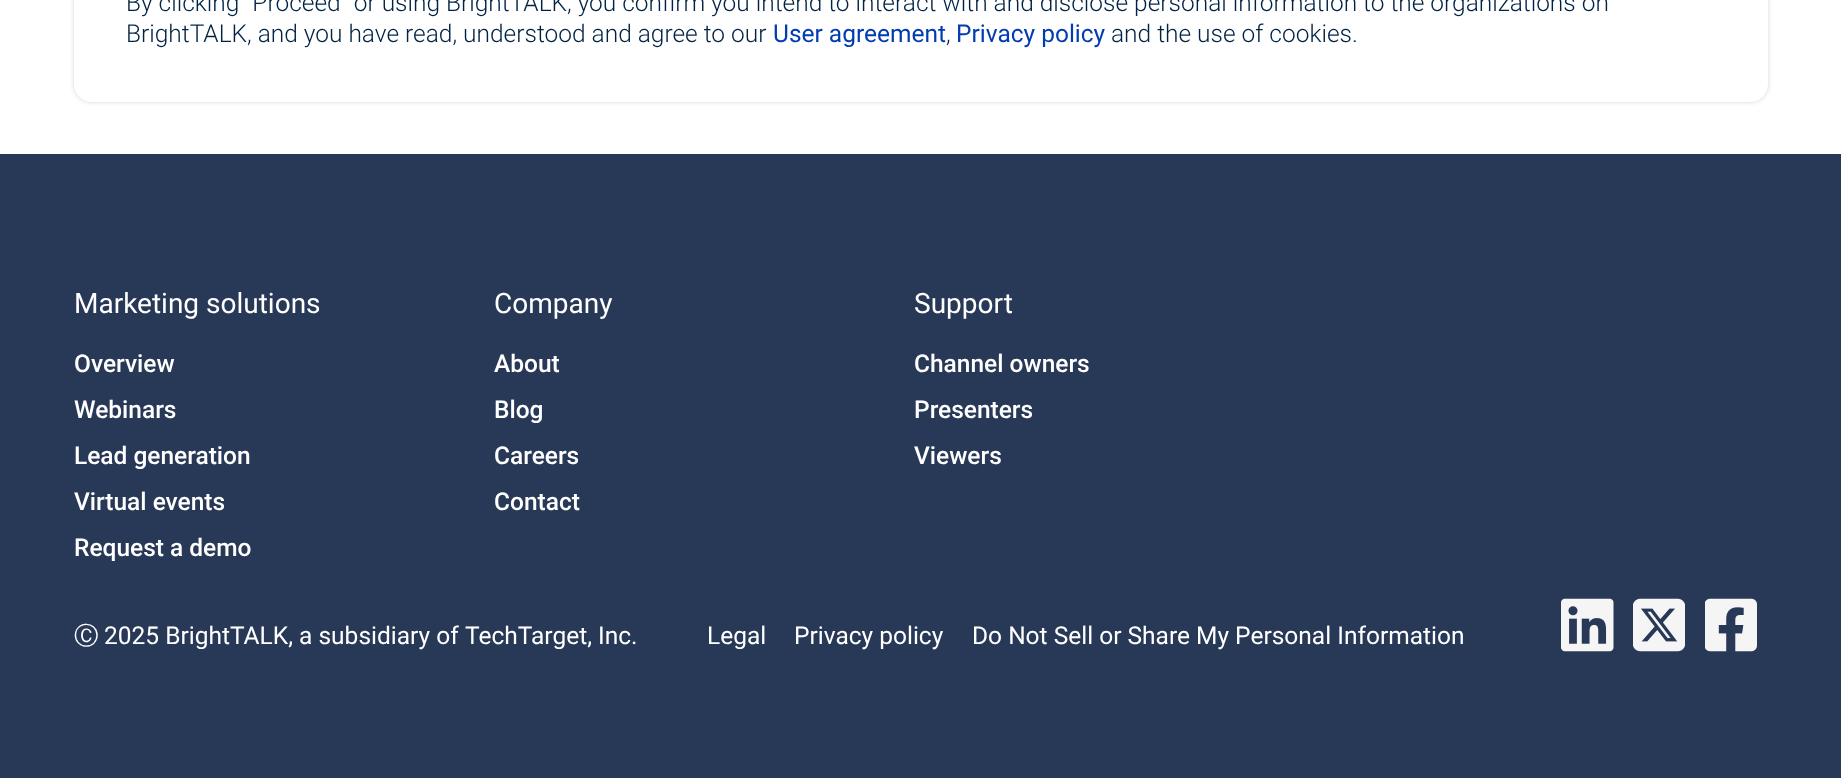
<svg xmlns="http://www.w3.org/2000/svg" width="1841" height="778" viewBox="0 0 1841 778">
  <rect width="100%" height="100%" fill="#fff"/>
  <rect x="74" y="-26" width="1694" height="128" rx="18" fill="#00000029" filter="blur(2.5px)"/>
  <rect x="74" y="-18" width="1694" height="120" rx="18" fill="#fff"/>
  <path d="M0 154h1841v624H0z" fill="#283857"/>
  <image x="1561" y="598" width="53" height="54" href="img/1.png"/>
  <image x="1633" y="598" width="52" height="54" href="img/2.png"/>
  <image x="1705" y="598" width="52" height="54" href="img/3.png"/>
  <g font-family="Roboto" font-size="24.5" font-weight="300" fill="#024">
    <text x="126" y="11">By clicking "Proceed" or using BrightTALK, you confirm you intend to interact with and disclose personal information to the organizations on</text>
    <text x="126" y="42">BrightTALK, and you have read, understood and agree to our</text>
  </g>
  <text x="773" y="42" font-family="'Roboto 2'" font-size="24.5" fill="#003cb2">User agreement</text>
  <text x="946" y="42" font-family="Roboto" font-size="24.5" font-weight="300" fill="#024">,</text>
  <text x="956" y="42" font-family="'Roboto 2'" font-size="24.5" fill="#003cb2">Privacy policy</text>
  <text x="1111" y="42" font-family="Roboto" font-size="24.5" font-weight="300" fill="#024">and the use of cookies.</text>
  <text x="74" y="313" font-family="Roboto" font-size="28" fill="#fff">Marketing solutions</text>
  <g font-family="Roboto" font-size="24.5" font-weight="500" fill="#fff">
    <text x="74" y="372">Overview</text>
    <text x="74" y="418">Webinars</text>
    <text x="74" y="464">Lead generation</text>
    <text x="74" y="510">Virtual events</text>
    <text x="74" y="556">Request a demo</text>
  </g>
  <text x="494" y="313" font-family="Roboto" font-size="28" fill="#fff">Company</text>
  <g font-family="Roboto" font-size="24.5" font-weight="500" fill="#fff">
    <text x="494" y="372">About</text>
    <text x="494" y="418">Blog</text>
    <text x="494" y="464">Careers</text>
    <text x="494" y="510">Contact</text>
  </g>
  <text x="914" y="313" font-family="Roboto" font-size="28" fill="#fff">Support</text>
  <g font-family="Roboto" font-size="24.5" font-weight="500" fill="#fff">
    <text x="914" y="372">Channel owners</text>
    <text x="914" y="418">Presenters</text>
    <text x="914" y="464">Viewers</text>
  </g>
  <text x="74" y="644" font-family="WenQuanYi Zen Hei" font-size="24.5" font-weight="500" fill="#fff">Ⓒ</text>
  <g font-family="Roboto" font-size="24.5" fill="#fff">
    <text x="104" y="644">2025 BrightTALK, a subsidiary of</text>
    <text x="465" y="644">TechTarget, Inc.</text>
    <text x="707" y="644">Legal</text>
    <text x="794" y="644">Privacy policy</text>
    <text x="972" y="644">Do Not Sell or Share My Personal Information</text>
  </g>
</svg>
